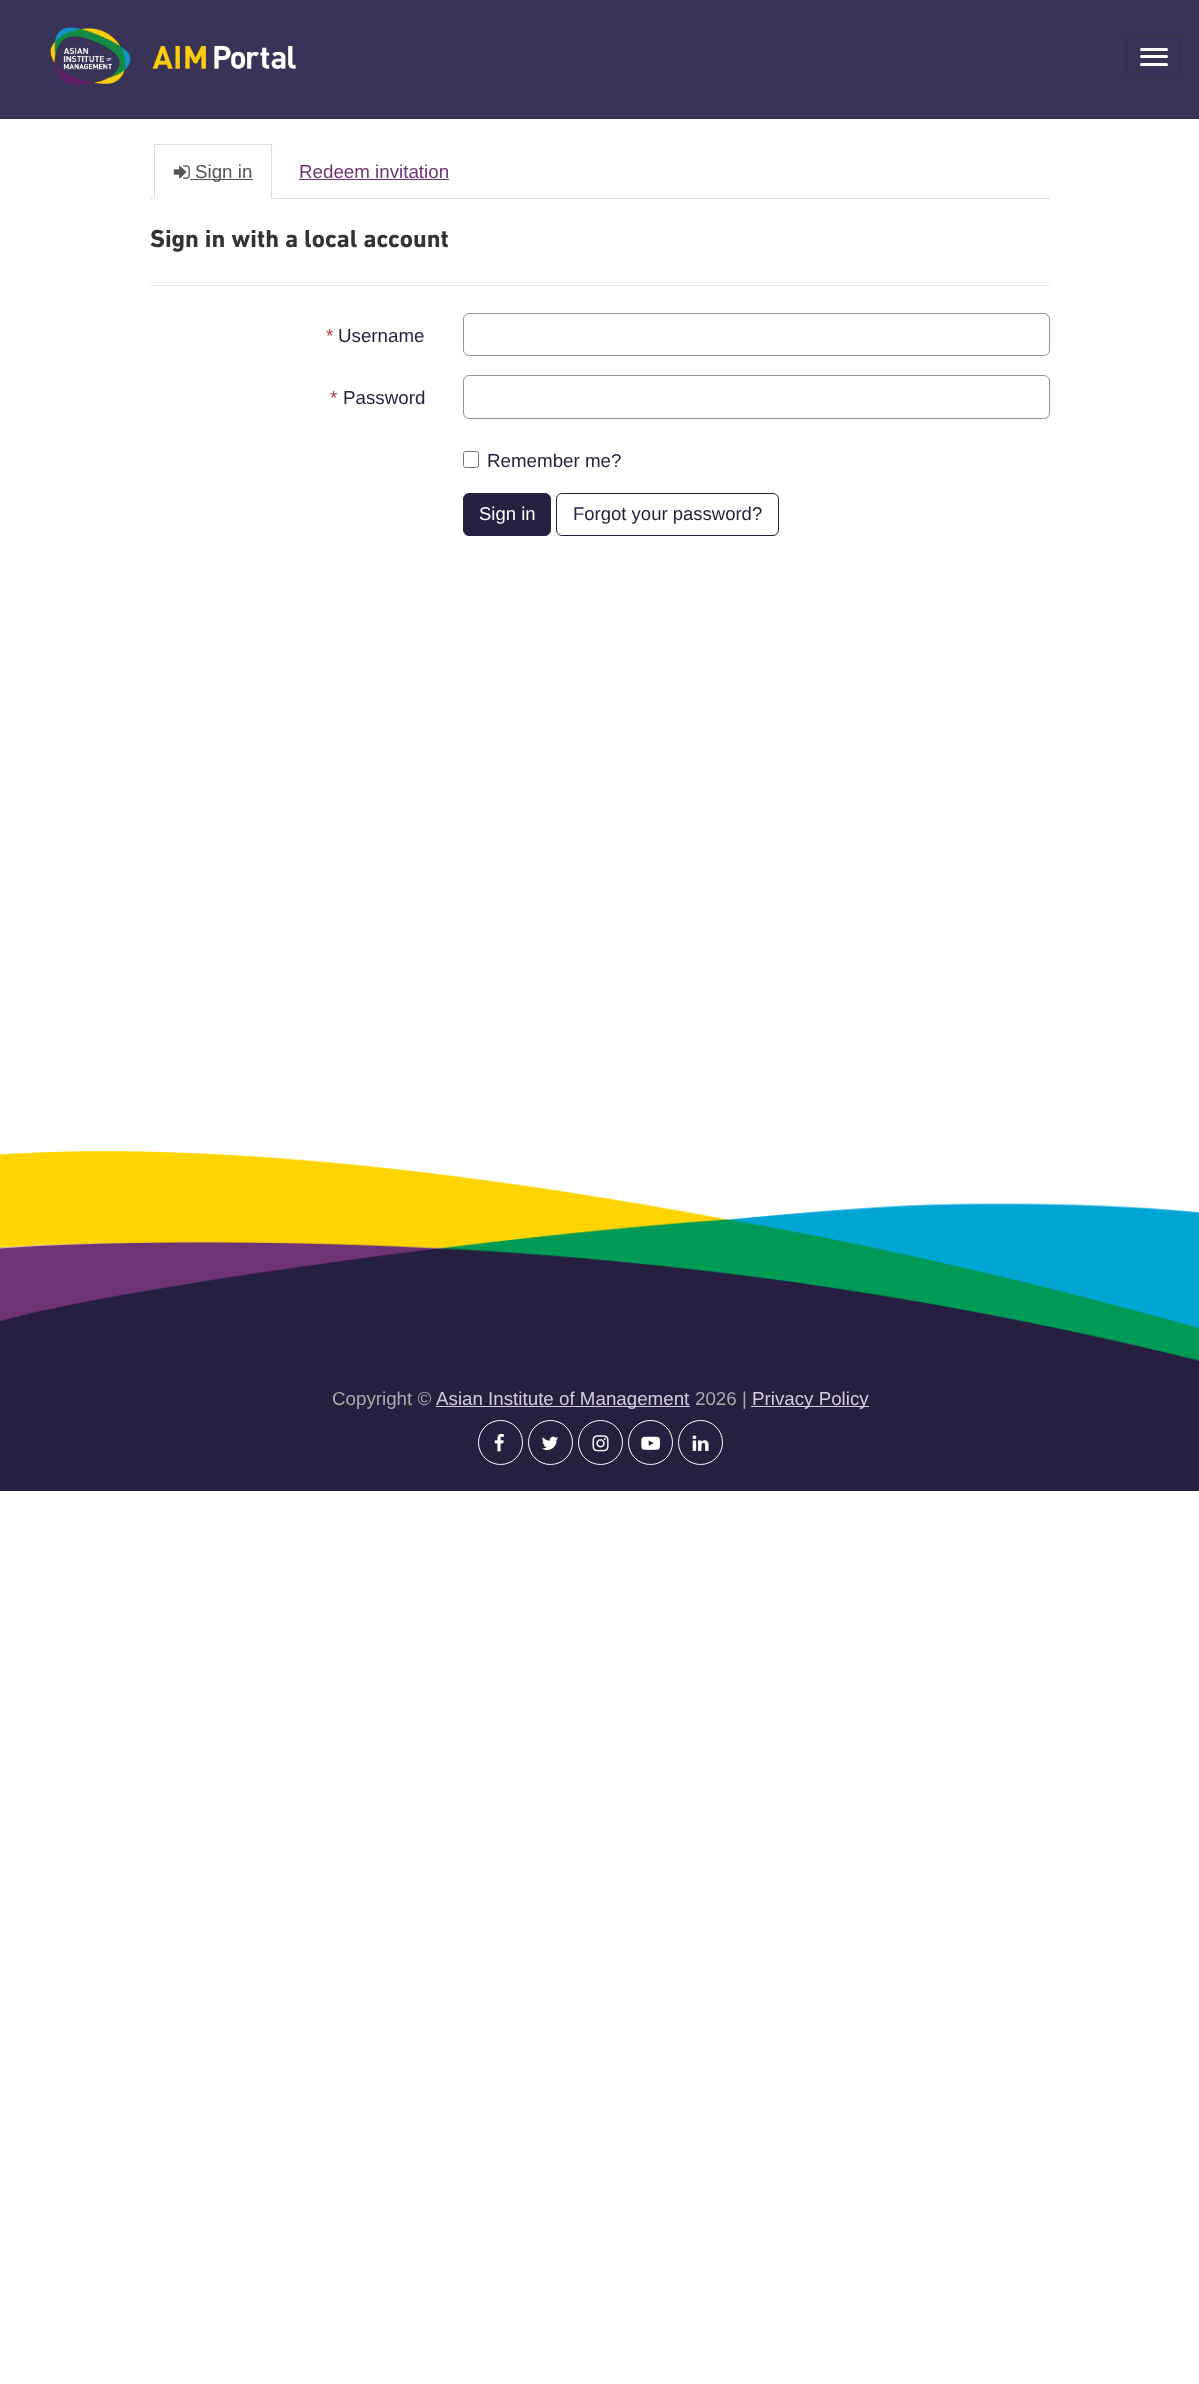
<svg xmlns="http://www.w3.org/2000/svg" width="1199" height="2384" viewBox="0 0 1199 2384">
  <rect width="100%" height="100%" fill="#fff"/>
  <path d="M0 0h1199v119H0z" fill="#393357"/>
  <image x="50" y="27" width="246" height="58" href="img/1.png"/>
  <path d="M1126.5 35.5h54v42H1126.5z" fill="none" stroke="#333"/>
  <rect x="1140" y="48" width="28" height="3" rx="1.5" fill="#fff"/>
  <rect x="1140" y="55" width="28" height="3" rx="1.5" fill="#fff"/>
  <rect x="1140" y="63" width="28" height="3" rx="1.5" fill="#fff"/>
  <path d="M150 198h900v1H150z" fill="#ddd"/>
  <path d="M154 198h119v1H154z" fill="#fff"/>
  <path d="M154 144h119v1H154z" fill="#ddd"/>
  <path d="M272 144V199L271 198V145Z" fill="#ddd"/>
  <path d="M154 199V144L155 145V198Z" fill="#ddd"/>
  <image x="173" y="165" width="17" height="14" href="img/2.png"/>
  <path d="M190 179h63v1H190z" fill="#555"/>
  <path d="M299 179h150v1H299z" fill="#6e3476"/>
  <path d="M150 285h900v1H150z" fill="#e5e5e5"/>
  <rect x="463.5" y="313.5" width="586" height="42" rx="5.5" fill="none" stroke="#949494"/>
  <rect x="463.5" y="375.5" width="586" height="43" rx="5.5" fill="none" stroke="#949494"/>
  <rect x="463.5" y="451.5" width="15" height="16" rx="2" fill="none" stroke="#767676"/>
  <rect x="463.5" y="493.5" width="87" height="42" rx="5.5" fill="#272041" stroke="#272041"/>
  <rect x="556.5" y="493.5" width="222" height="42" rx="5.5" fill="none" stroke="#272041"/>
  <path d="M0 1270h1199v96H0z" fill="#272040"/>
  <image x="0" y="1151" width="1199" height="210" href="img/3.png"/>
  <path d="M0 1366h1199v125H0z" fill="#261f40"/>
  <path d="M436 1406h254v1H436z" fill="#d2ccda"/>
  <path d="M751 1406h118v1H751z" fill="#d2ccda"/>
  <circle cx="500.5" cy="1442.5" r="22" fill="none" stroke="#fff"/>
  <image x="494" y="1433" width="10" height="19" href="img/4.png"/>
  <circle cx="550.5" cy="1442.5" r="22" fill="none" stroke="#fff"/>
  <image x="541" y="1436" width="17" height="14" href="img/5.png"/>
  <circle cx="600.5" cy="1442.5" r="22" fill="none" stroke="#fff"/>
  <image x="592" y="1435" width="17" height="17" href="img/6.png"/>
  <circle cx="650.5" cy="1442.5" r="22" fill="none" stroke="#fff"/>
  <image x="641" y="1436" width="19" height="14" href="img/7.png"/>
  <circle cx="700.5" cy="1442.5" r="22" fill="none" stroke="#fff"/>
  <image x="692" y="1435" width="17" height="16" href="img/8.png"/>
  <text x="195" y="178" font-family="Liberation Sans" font-size="18.75" fill="#555">Sign in</text>
  <text x="299" y="178" font-family="Liberation Sans" font-size="18.75" fill="#6e3476">Redeem invitation</text>
  <text x="150" y="247" font-family="'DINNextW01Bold'" font-size="25" font-weight="bold" fill="#333">Sign in with a local account</text>
  <text x="326" y="342" font-family="Liberation Sans" font-size="18.75" fill="#a94442">*</text>
  <text x="338" y="342" font-family="Liberation Sans" font-size="18.75" fill="#261f40">Username</text>
  <text x="330" y="404" font-family="Liberation Sans" font-size="18.75" fill="#a94442">*</text>
  <g font-family="Liberation Sans" font-size="18.75" fill="#261f40">
    <text x="343" y="404">Password</text>
    <text x="487" y="467">Remember me?</text>
  </g>
  <text x="479" y="520" font-family="Liberation Sans" font-size="18.5" fill="#fff">Sign in</text>
  <text x="573" y="520" font-family="Liberation Sans" font-size="18.5" fill="#261f40">Forgot your password?</text>
  <text x="332" y="1405" font-family="Liberation Sans" font-size="18.75" fill="#aaa">Copyright ©</text>
  <text x="436" y="1405" font-family="Liberation Sans" font-size="18.75" fill="#d2ccda">Asian Institute of Management</text>
  <text x="695" y="1405" font-family="Liberation Sans" font-size="18.75" fill="#aaa">2026 |</text>
  <text x="752" y="1405" font-family="Liberation Sans" font-size="18.75" fill="#d2ccda">Privacy Policy</text>
</svg>
